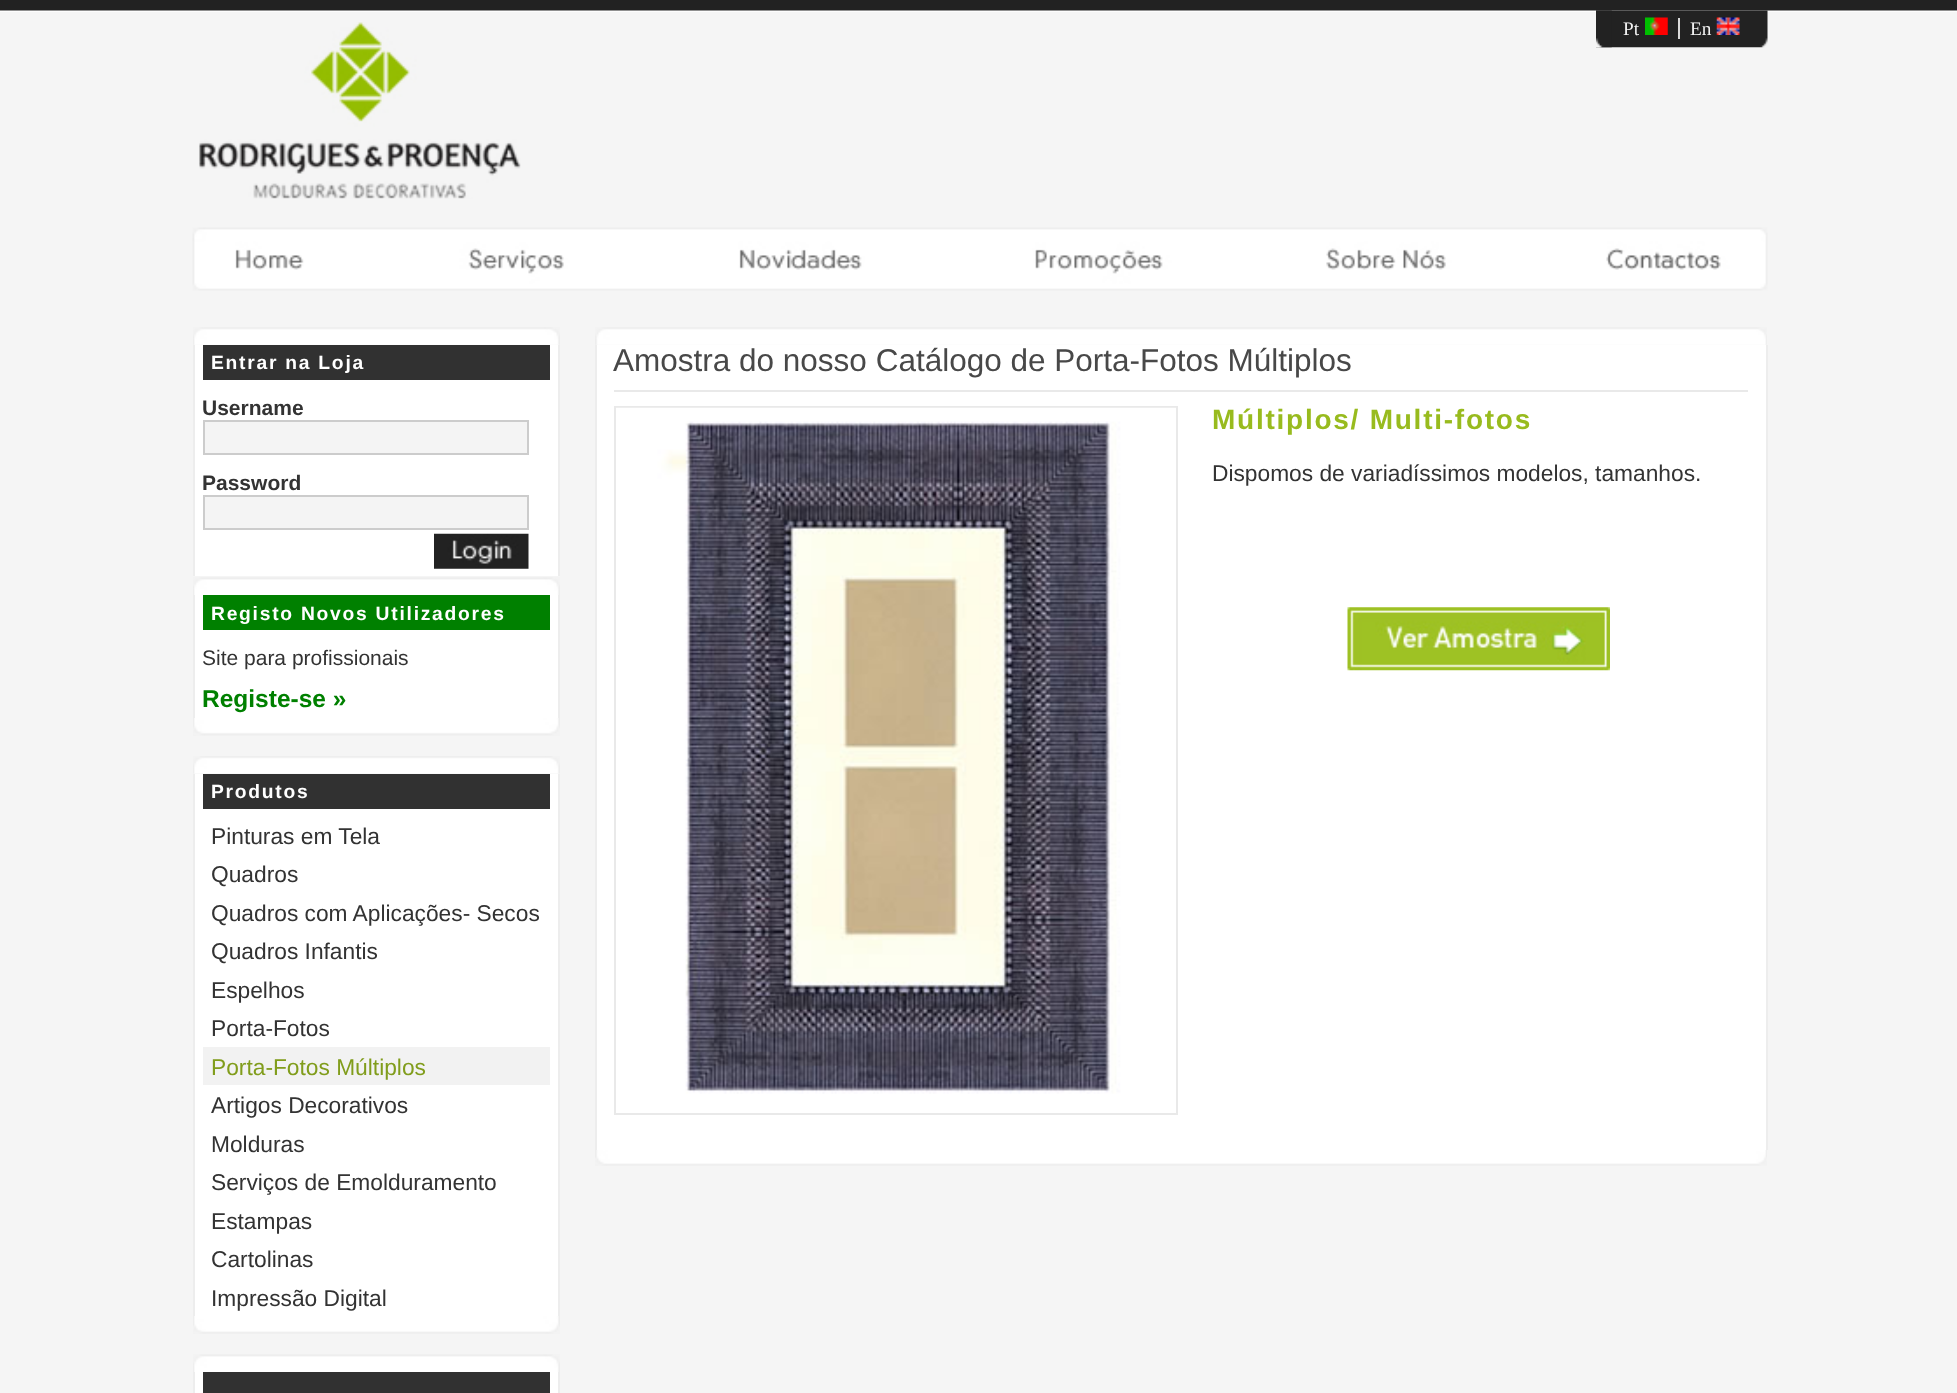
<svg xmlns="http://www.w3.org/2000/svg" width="1957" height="1393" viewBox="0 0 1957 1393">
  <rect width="100%" height="100%" fill="#f5f5f5"/>
  <image x="0" y="0" width="1957" height="12" href="img/1.png"/>
  <image x="199" y="22" width="322" height="177" href="img/2.png"/>
  <image x="1596" y="10" width="172" height="38" href="img/3.png"/>
  <image x="1596" y="10" width="16" height="38" href="img/4.png"/>
  <image x="1645" y="17" width="23" height="18" href="img/5.png"/>
  <path d="M1678 18h2v21H1678z" fill="#dadada"/>
  <image x="1716" y="17" width="24" height="18" href="img/6.png"/>
  <image x="192" y="227" width="1576" height="64" href="img/7.png"/>
  <image x="193" y="327" width="367" height="18" href="img/8.png"/>
  <path d="M195 345h363v231H195z" fill="#fff"/>
  <path d="M558 345h2v231H558z" fill="#ededed"/>
  <path d="M193 345h2v231H193z" fill="#ededed"/>
  <path d="M203 345h347v35H203z" fill="#313131"/>
  <path d="M204 421h324v33H204z" fill="#f4f4f4" stroke="#ccc" stroke-width="2"/>
  <path d="M204 496h324v33H204z" fill="#f4f4f4" stroke="#ccc" stroke-width="2"/>
  <image x="434" y="533" width="95" height="36" href="img/9.png"/>
  <image x="193" y="577" width="367" height="18" href="img/10.png"/>
  <path d="M195 595h363v123H195z" fill="#fff"/>
  <path d="M558 595h2v123H558z" fill="#ededed"/>
  <path d="M193 595h2v123H193z" fill="#ededed"/>
  <path d="M203 595h347v35H203z" fill="#008000"/>
  <image x="193" y="718" width="367" height="18" href="img/11.png"/>
  <image x="193" y="756" width="367" height="18" href="img/12.png"/>
  <path d="M195 774h363v542H195z" fill="#fff"/>
  <path d="M558 774h2v542H558z" fill="#ededed"/>
  <path d="M193 774h2v542H193z" fill="#ededed"/>
  <path d="M203 774h347v35H203z" fill="#313131"/>
  <path d="M203 1047h347v38H203z" fill="#f2f2f2"/>
  <image x="193" y="1316" width="367" height="18" href="img/13.png"/>
  <image x="193" y="1354" width="367" height="18" href="img/10.png"/>
  <path d="M195 1372h363v21H195z" fill="#fff"/>
  <path d="M558 1372h2v21H558z" fill="#ededed"/>
  <path d="M193 1372h2v21H193z" fill="#ededed"/>
  <path d="M203 1372h347v21H203z" fill="#313131"/>
  <image x="595" y="327" width="1172" height="18" href="img/14.png"/>
  <path d="M597 345h1169v805H597z" fill="#fff"/>
  <path d="M1766 345h2v805H1766z" fill="#ededed"/>
  <path d="M595 345h2v805H595z" fill="#ededed"/>
  <path d="M614 390h1134v2H614z" fill="#e9e9e9"/>
  <path d="M615 407h562v707H615z" fill="none" stroke="#e9e9e9" stroke-width="2"/>
  <image x="616" y="407" width="560" height="687" href="img/15.png"/>
  <image x="1347" y="607" width="263" height="64" href="img/16.png"/>
  <image x="595" y="1150" width="1172" height="16" href="img/17.png"/>
  <g font-family="Liberation Serif" font-size="19.25" fill="#f3f3f3">
    <text x="1623" y="35">Pt</text>
    <text x="1690" y="35">En</text>
  </g>
  <text x="211" y="369" font-family="Liberation Sans" font-size="19.25" font-weight="bold" letter-spacing="1.75" fill="#fff">Entrar na Loja</text>
  <g font-family="Liberation Sans" font-size="21" font-weight="bold" fill="#333">
    <text x="202" y="415">Username</text>
    <text x="202" y="490">Password</text>
  </g>
  <text x="211" y="620" font-family="Liberation Sans" font-size="19.25" font-weight="bold" letter-spacing="1.75" fill="#fff">Registo Novos Utilizadores</text>
  <text x="202" y="665" font-family="Liberation Sans" font-size="21" fill="#333">Site para profissionais</text>
  <text x="202" y="707" font-family="Liberation Sans" font-size="24.5" font-weight="bold" fill="#008000">Registe-se »</text>
  <text x="211" y="798" font-family="Liberation Sans" font-size="19.25" font-weight="bold" letter-spacing="1.75" fill="#fff">Produtos</text>
  <g font-family="Liberation Sans" font-size="22.75" fill="#333">
    <text x="211" y="844">Pinturas em Tela</text>
    <text x="211" y="882">Quadros</text>
    <text x="211" y="921">Quadros com Aplicações- Secos</text>
    <text x="211" y="959">Quadros Infantis</text>
    <text x="211" y="998">Espelhos</text>
    <text x="211" y="1036">Porta-Fotos</text>
  </g>
  <text x="211" y="1075" font-family="Liberation Sans" font-size="22.75" fill="#819d1c">Porta-Fotos Múltiplos</text>
  <g font-family="Liberation Sans" font-size="22.75" fill="#333">
    <text x="211" y="1113">Artigos Decorativos</text>
    <text x="211" y="1152">Molduras</text>
    <text x="211" y="1190">Serviços de Emolduramento</text>
    <text x="211" y="1229">Estampas</text>
    <text x="211" y="1267">Cartolinas</text>
    <text x="211" y="1306">Impressão Digital</text>
  </g>
  <text x="613" y="371" font-family="Liberation Sans" font-size="31.5" fill="#484848">Amostra do nosso Catálogo de Porta-Fotos Múltiplos</text>
  <text x="1212" y="429" font-family="Liberation Sans" font-size="28" font-weight="bold" letter-spacing="1.75" fill="#98bb1e">Múltiplos/ Multi-fotos</text>
  <text x="1212" y="481" font-family="Liberation Sans" font-size="22.75" fill="#333">Dispomos de variadíssimos modelos, tamanhos.</text>
</svg>
